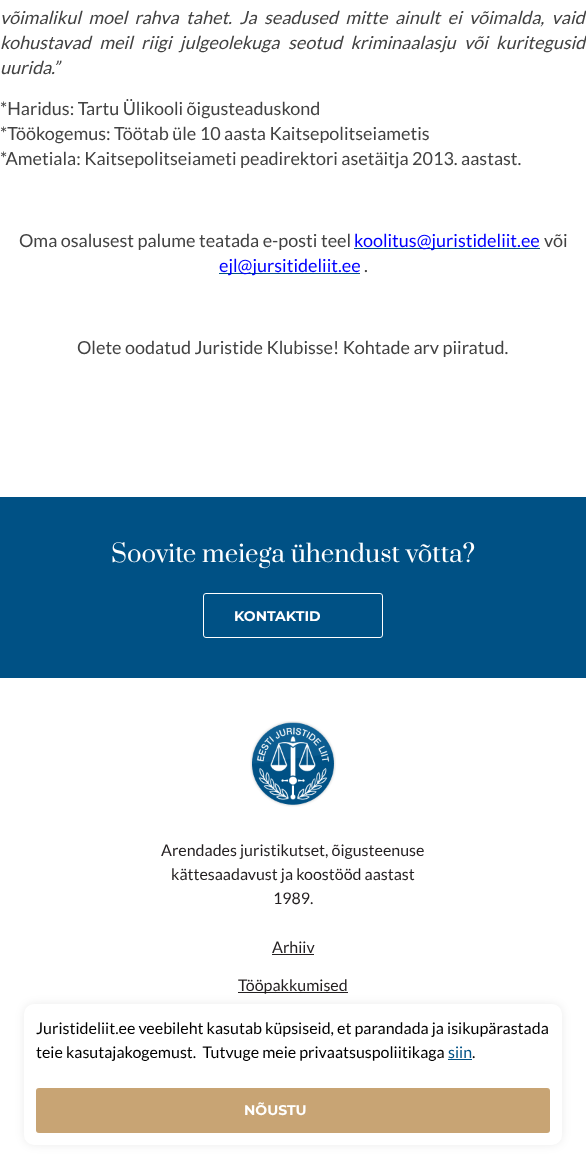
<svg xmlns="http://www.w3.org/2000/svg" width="586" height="1157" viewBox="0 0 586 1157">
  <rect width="100%" height="100%" fill="#fff"/>
  <path d="M354 248h186v1H354z" fill="#005185"/>
  <path d="M219 273h141v1H219z" fill="#005185"/>
  <path d="M0 497h586v181H0z" fill="#005185"/>
  <rect x="203.5" y="593.5" width="179" height="44" rx="2.5" fill="none" stroke="#fff"/>
  <image x="250" y="721" width="86" height="86" href="img/1.png"/>
  <path d="M272 954h42v1H272z" fill="#231f20"/>
  <path d="M238 992h110v1H238z" fill="#231f20"/>
  <rect x="24" y="1004" width="538" height="141" rx="10" fill="#00000014" filter="blur(5px)"/>
  <rect x="24" y="1004" width="538" height="141" rx="10" fill="#fff"/>
  <path d="M448 1059h24v1H448z" fill="#005185"/>
  <rect x="36" y="1088" width="514" height="45" rx="3" fill="#c8a474"/>
  <g font-family="Lato" font-size="18" font-style="italic" fill="#424242">
    <text x="0" y="24" word-spacing="4">võimalikul moel rahva tahet. Ja seadused mitte ainult ei võimalda, vaid</text>
    <text x="0" y="49" word-spacing="5">kohustavad meil riigi julgeolekuga seotud kriminaalasju või kuritegusid</text>
    <text x="0" y="74">uurida.”</text>
  </g>
  <g font-family="Lato" font-size="18" fill="#424242">
    <text x="0" y="115">*Haridus: Tartu Ülikooli õigusteaduskond</text>
    <text x="0" y="140">*Töökogemus: Töötab üle 10 aasta Kaitsepolitseiametis</text>
    <text x="0" y="165">*Ametiala: Kaitsepolitseiameti peadirektori asetäitja 2013. aastast.</text>
    <text x="19" y="247">Oma osalusest palume teatada e-posti teel</text>
  </g>
  <text x="354" y="247" font-family="Lato" font-size="18" fill="#00f">koolitus@juristideliit.ee</text>
  <text x="544" y="247" font-family="Lato" font-size="18" fill="#424242">või</text>
  <text x="219" y="272" font-family="Lato" font-size="18" fill="#00f">ejl@jursitideliit.ee</text>
  <g font-family="Lato" font-size="18" fill="#424242">
    <text x="364" y="272">.</text>
    <text x="77" y="354">Olete oodatud Juristide Klubisse! Kohtade arv piiratud.</text>
  </g>
  <text x="111" y="562" font-family="Prata" font-size="24" fill="#fff">Soovite meiega ühendust võtta?</text>
  <text x="234" y="621" font-family="Montserrat" font-size="14" font-weight="bold" fill="#fff">KONTAKTID</text>
  <g font-family="Lato" font-size="16" fill="#231f20">
    <text x="161" y="856">Arendades juristikutset, õigusteenuse</text>
    <text x="171" y="880">kättesaadavust ja koostööd aastast</text>
    <text x="273" y="904">1989.</text>
    <text x="272" y="953">Arhiiv</text>
    <text x="238" y="991">Tööpakkumised</text>
  </g>
  <g font-family="Lato" font-size="16" fill="#000">
    <text x="36" y="1034">Juristideliit.ee veebileht kasutab küpsiseid, et parandada ja isikupärastada</text>
    <text x="36" y="1058" xml:space="preserve">teie kasutajakogemust.  Tutvuge meie privaatsuspoliitikaga</text>
  </g>
  <text x="448" y="1058" font-family="Lato" font-size="16" fill="#005185">siin</text>
  <text x="472" y="1058" font-family="Lato" font-size="16" fill="#000">.</text>
  <text x="244" y="1115" font-family="Montserrat" font-size="14" font-weight="bold" fill="#fff">NÕUSTU</text>
</svg>
